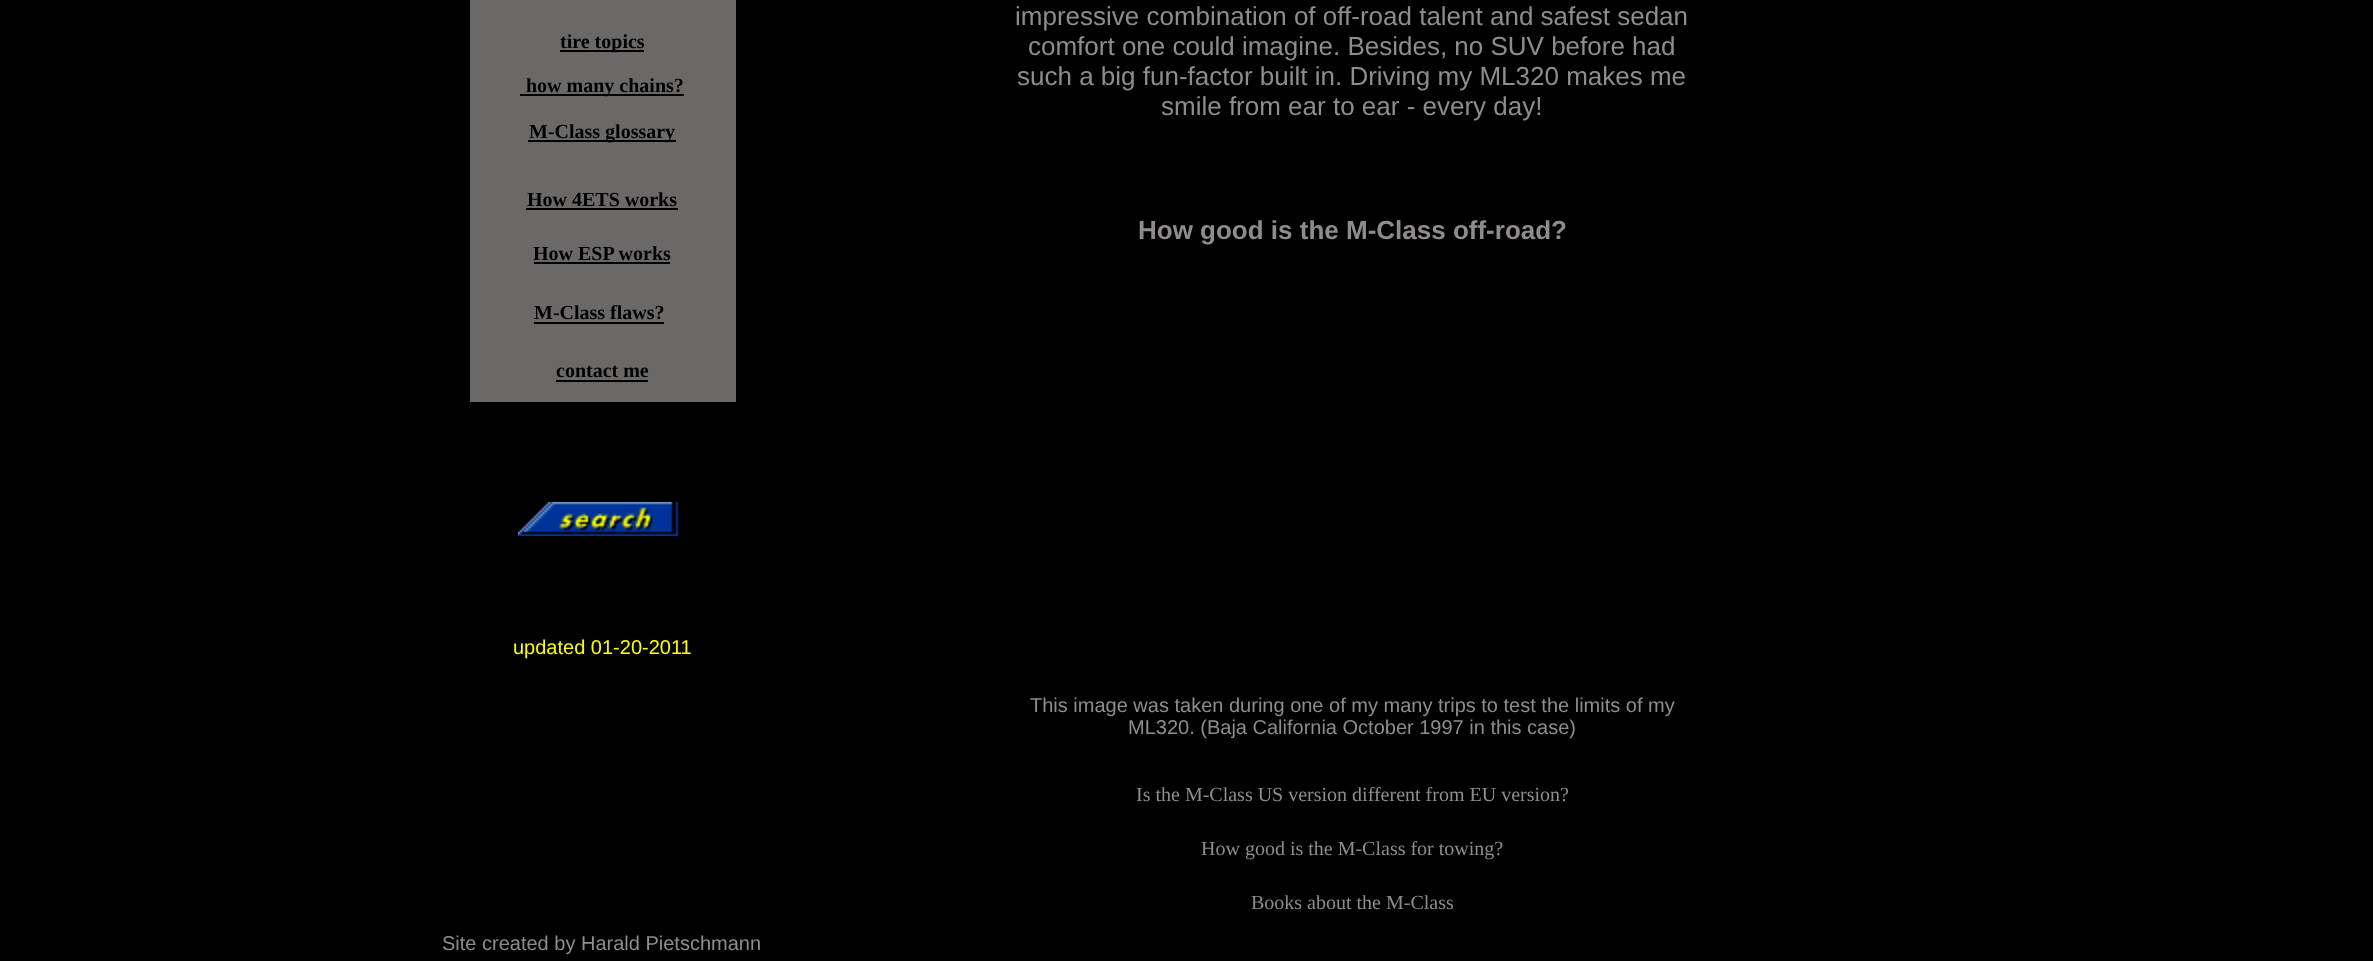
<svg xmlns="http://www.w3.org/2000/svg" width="2373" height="961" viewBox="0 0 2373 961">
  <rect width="100%" height="100%" fill="#000"/>
  <path d="M470 0h266v402H470z" fill="#6b6868"/>
  <path d="M560 50h84v2H560z" fill="#000"/>
  <path d="M520 94h164v2H520z" fill="#000"/>
  <path d="M528 140h148v2H528z" fill="#000"/>
  <path d="M526 208h152v2H526z" fill="#000"/>
  <path d="M534 262h136v2H534z" fill="#000"/>
  <path d="M534 322h130v2H534z" fill="#000"/>
  <path d="M556 380h92v2H556z" fill="#000"/>
  <image x="518" y="502" width="161" height="34" href="img/1.png"/>
  <g font-family="Liberation Serif" font-size="20" font-weight="bold" fill="#000">
    <text x="560" y="48">tire topics</text>
    <text x="526" y="92">how many chains?</text>
    <text x="529" y="138">M-Class glossary</text>
    <text x="527" y="206">How 4ETS works</text>
    <text x="533" y="260">How ESP works</text>
    <text x="534" y="319">M-Class flaws?</text>
    <text x="556" y="377">contact me</text>
  </g>
  <text x="513" y="654" font-family="Liberation Sans" font-size="20" fill="#ff0">updated 01-20-2011</text>
  <text x="442" y="950" font-family="Liberation Sans" font-size="20" fill="#908c8c">Site created by Harald Pietschmann</text>
  <g font-family="Liberation Sans" font-size="26" fill="#908c8c">
    <text x="1015" y="25">impressive combination of off-road talent and safest sedan</text>
    <text x="1028" y="55">comfort one could imagine. Besides, no SUV before had</text>
    <text x="1017" y="85">such a big fun-factor built in. Driving my ML320 makes me</text>
    <text x="1161" y="115">smile from ear to ear - every day!</text>
  </g>
  <text x="1138" y="239" font-family="Liberation Sans" font-size="26" font-weight="bold" fill="#908c8c">How good is the M-Class off-road?</text>
  <g font-family="Liberation Sans" font-size="20" fill="#908c8c">
    <text x="1030" y="712">This image was taken during one of my many trips to test the limits of my</text>
    <text x="1128" y="734">ML320. (Baja California October 1997 in this case)</text>
  </g>
  <g font-family="Liberation Serif" font-size="20" fill="#908c8c">
    <text x="1136" y="801">Is the M-Class US version different from EU version?</text>
    <text x="1201" y="855">How good is the M-Class for towing?</text>
    <text x="1251" y="909">Books about the M-Class</text>
  </g>
</svg>
